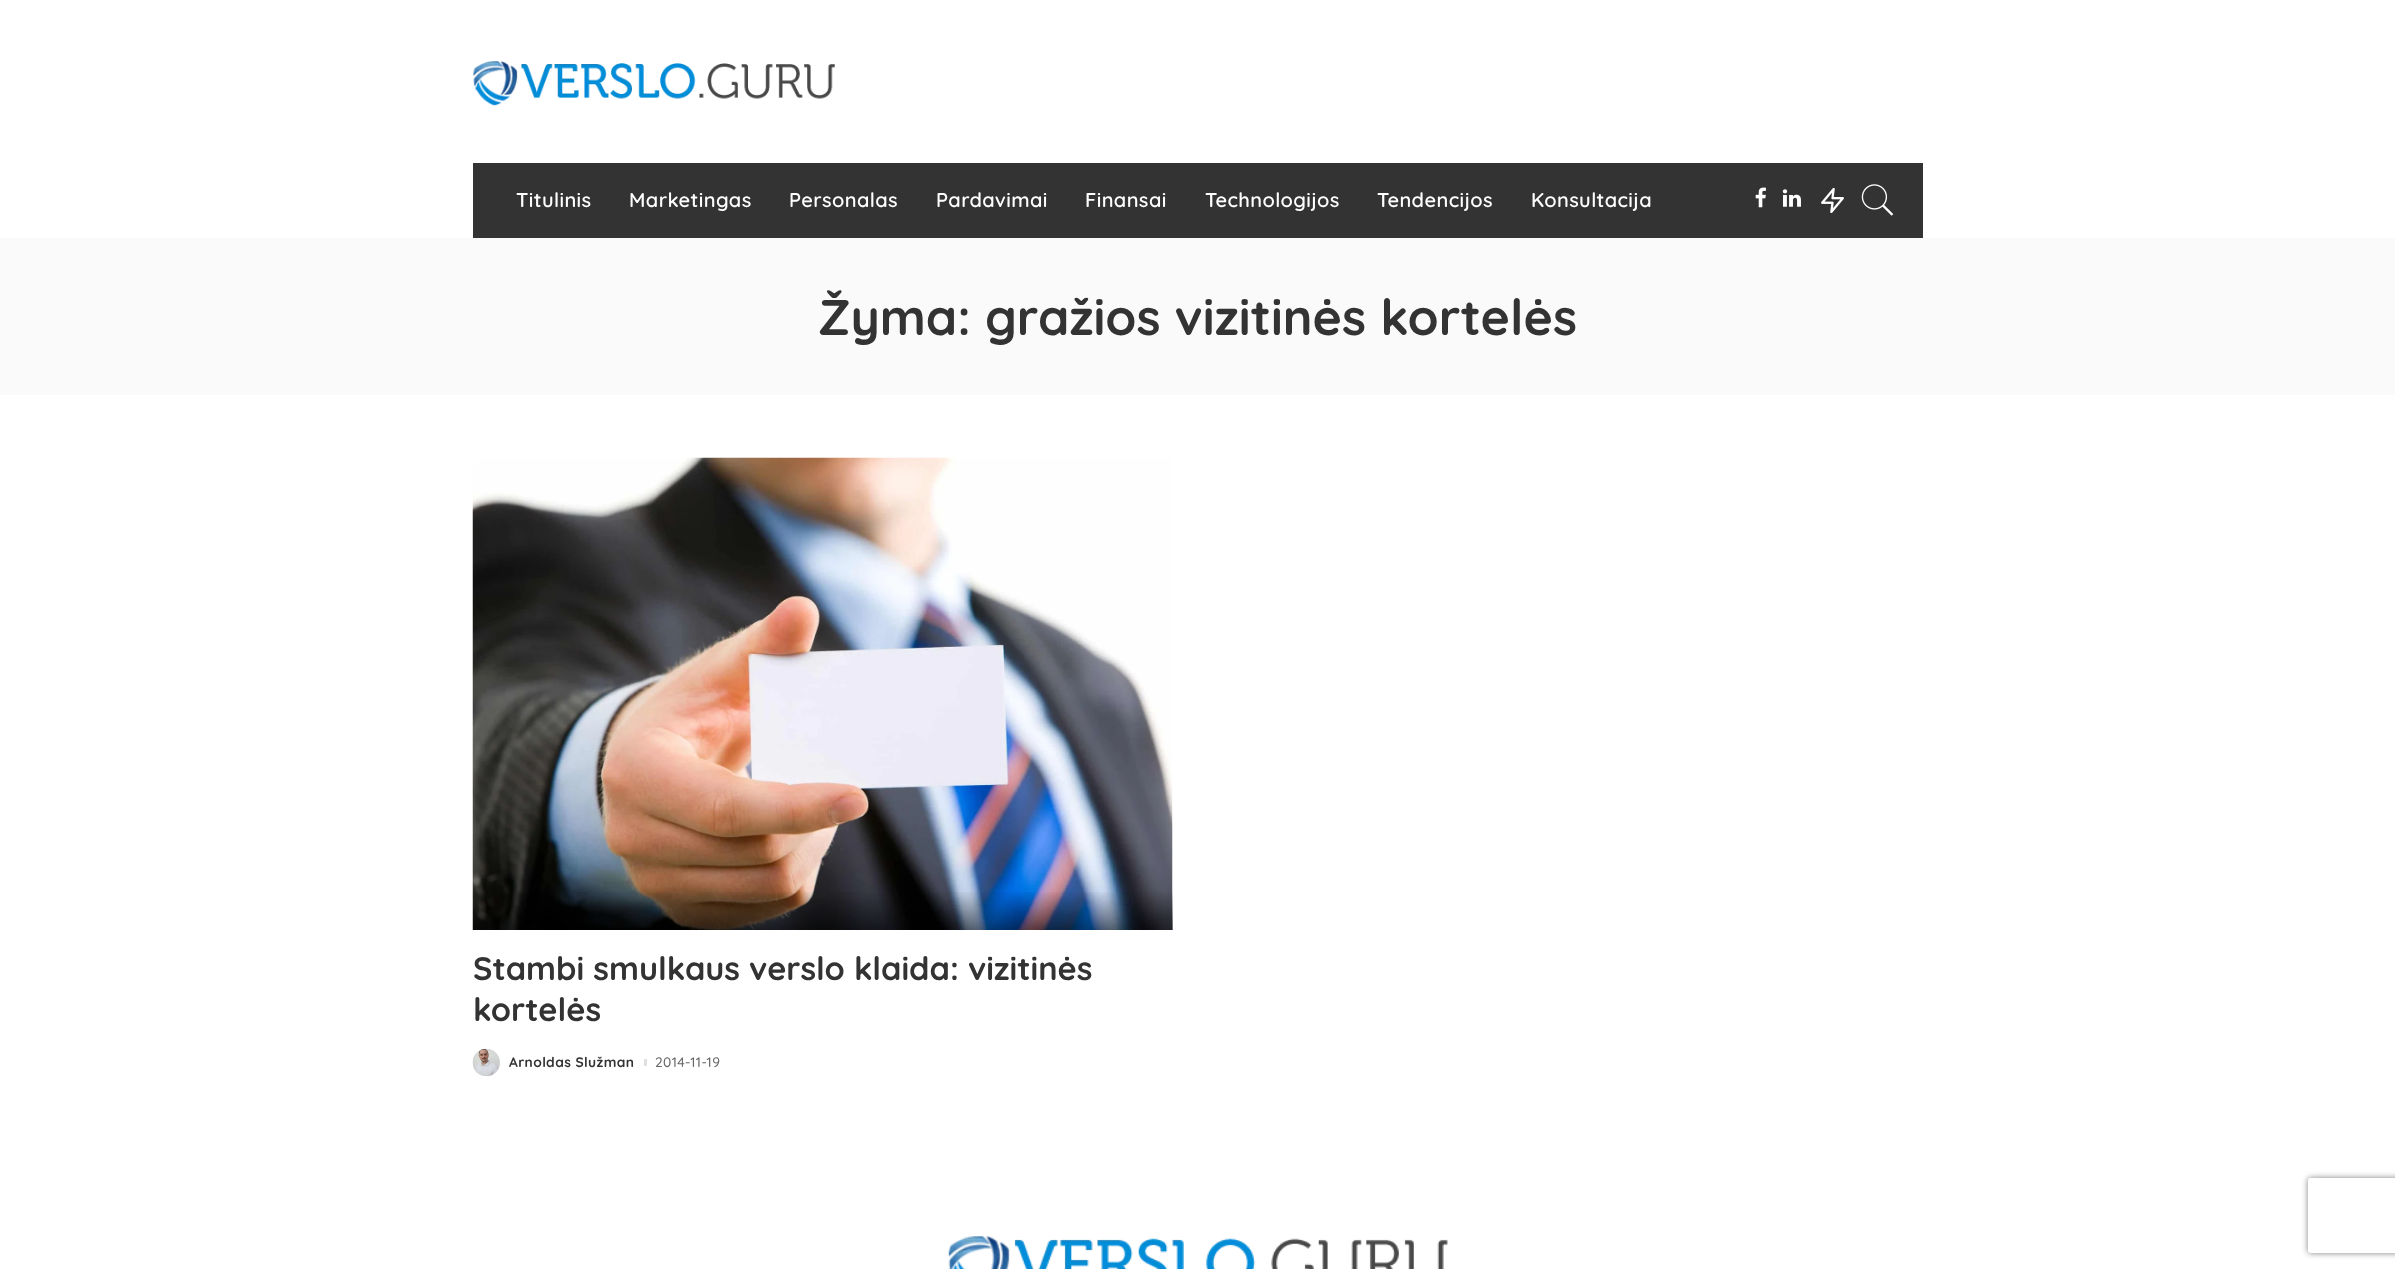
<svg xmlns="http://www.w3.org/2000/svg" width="2395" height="1269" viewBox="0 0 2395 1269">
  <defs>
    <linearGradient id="g1" gradientUnits="userSpaceOnUse" x1="823" y1="890" x2="823" y2="930"><stop offset="0" stop-color="#000" stop-opacity="0"/><stop offset="1" stop-color="#000" stop-opacity="0.5"/></linearGradient>
    <clipPath id="clip1"><path d="M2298 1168H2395V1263H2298ZM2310.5 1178H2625.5C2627 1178 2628 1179 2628 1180.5V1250.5C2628 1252 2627 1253 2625.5 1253H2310.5C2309 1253 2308 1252 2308 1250.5V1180.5C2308 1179 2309 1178 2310.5 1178Z" clip-rule="evenodd"/></clipPath>
  </defs>
  <rect width="100%" height="100%" fill="#fff"/>
  <image x="473" y="61" width="362" height="45" href="img/1.png"/>
  <path d="M473 163h1450v75H473z" fill="#333"/>
  <image x="1755" y="187" width="11" height="21" href="img/2.png"/>
  <image x="1782" y="189" width="19" height="18" href="img/3.png"/>
  <image x="1821" y="187" width="23" height="26" href="img/4.png"/>
  <image x="1861" y="184" width="33" height="32" href="img/5.png"/>
  <path d="M0 238h2395v157H0z" fill="#fafafa"/>
  <image x="472" y="457" width="701" height="473" href="img/6.png"/>
  <path d="M473 892h700v38H473z" fill="url(#g1)"/>
  <image x="472" y="1048" width="28" height="28" href="img/7.png"/>
  <path d="M644 1059h3v7H644z" fill="#e0e0e0"/>
  <image x="948" y="1236" width="500" height="33" href="img/8.png"/>
  <g clip-path="url(#clip1)">
    <rect x="2308" y="1178" width="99" height="75" rx="2.5" fill="#808080" filter="blur(3px)"/>
  </g>
  <g font-family="Quicksand" font-size="20" font-weight="600" letter-spacing="0.4" fill="#fff">
    <text x="516" y="207">Titulinis</text>
    <text x="629" y="207">Marketingas</text>
    <text x="789" y="207">Personalas</text>
    <text x="936" y="207">Pardavimai</text>
    <text x="1085" y="207">Finansai</text>
    <text x="1205" y="207">Technologijos</text>
    <text x="1377" y="207">Tendencijos</text>
    <text x="1531" y="207">Konsultacija</text>
  </g>
  <text x="818" y="335" font-family="Quicksand" font-size="50" font-weight="bold" fill="#333">Žyma: gražios vizitinės kortelės</text>
  <g font-family="Quicksand" font-size="32.5" font-weight="bold" fill="#333">
    <text x="473" y="980">Stambi smulkaus verslo klaida: vizitinės</text>
    <text x="473" y="1021">kortelės</text>
  </g>
  <text x="509" y="1067" font-family="Quicksand" font-size="13.75" font-weight="bold" letter-spacing="0.4" fill="#333">Arnoldas Služman</text>
  <text x="655" y="1067" font-family="Quicksand" font-size="13.75" font-weight="500" letter-spacing="0.4" fill="#666">2014-11-19</text>
</svg>
